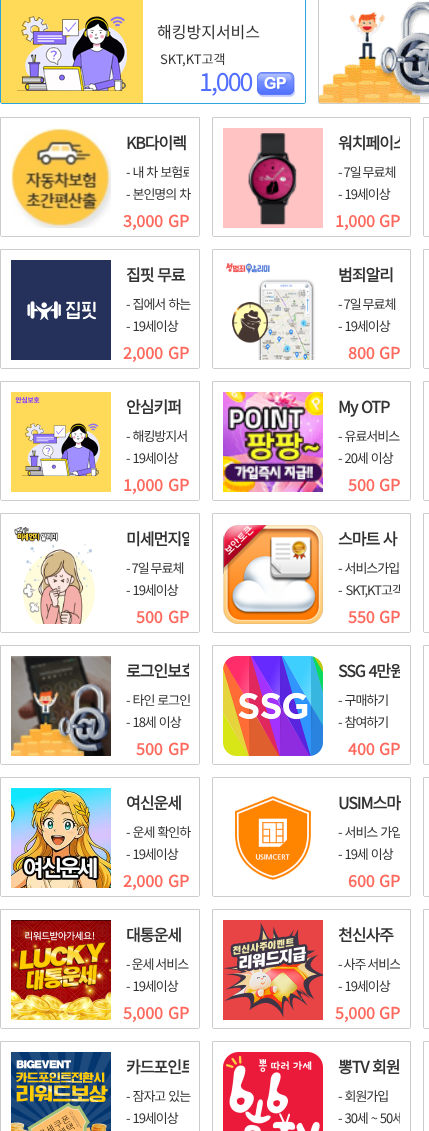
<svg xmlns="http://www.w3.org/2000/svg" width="429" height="1131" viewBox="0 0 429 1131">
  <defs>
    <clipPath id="clip1"><path d="M121 159h68v22H121z"/></clipPath>
    <clipPath id="clip2"><path d="M333 130h67v24H333z"/></clipPath>
    <clipPath id="clip3"><path d="M121 526h68v24H121z"/></clipPath>
    <clipPath id="clip4"><path d="M333 577h67v22H333z"/></clipPath>
    <clipPath id="clip5"><path d="M121 658h68v24H121z"/></clipPath>
    <clipPath id="clip6"><path d="M333 658h67v24H333z"/></clipPath>
    <clipPath id="clip7"><path d="M333 819h67v22H333z"/></clipPath>
    <clipPath id="clip8"><path d="M121 951h68v22H121z"/></clipPath>
    <clipPath id="clip9"><path d="M333 951h67v22H333z"/></clipPath>
    <clipPath id="clip10"><path d="M121 1054h68v24H121z"/></clipPath>
    <clipPath id="clip11"><path d="M333 1105h67v22H333z"/></clipPath>
  </defs>
  <rect width="100%" height="100%" fill="#fff"/>
  <path d="M.5-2.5H305.5V102C305.5 103 305 103.5 304 103.5H2C1 103.5 .5 103 .5 102Z" fill="none" stroke="#2ca4dc"/>
  <image x="1" y="0" width="142" height="103" href="img/1.png"/>
  <image x="257" y="72" width="38" height="25" href="img/2.png"/>
  <path d="M318.5-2.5H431.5V102C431.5 103 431 103.5 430 103.5H320C319 103.5 318.5 103 318.5 102Z" fill="none" stroke="#ccc"/>
  <image x="319" y="1" width="110" height="102" href="img/3.png"/>
  <path d="M.5 117.5H199.5V235C199.5 236 199 236.5 198 236.5H2C1 236.5 .5 236 .5 235Z" fill="none" stroke="#ccc"/>
  <image x="11" y="128" width="100" height="100" href="img/4.png"/>
  <path d="M212.5 117.5H410.5V235C410.5 236 410 236.5 409 236.5H214C213 236.5 212.5 236 212.5 235Z" fill="none" stroke="#ccc"/>
  <image x="223" y="128" width="100" height="100" href="img/5.png"/>
  <path d="M423.5 117.5H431.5V235C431.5 236 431 236.5 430 236.5H425C424 236.5 423.5 236 423.5 235Z" fill="none" stroke="#ccc"/>
  <path d="M.5 249.5H199.5V367C199.5 368 199 368.5 198 368.5H2C1 368.5 .5 368 .5 367Z" fill="none" stroke="#ccc"/>
  <image x="11" y="260" width="100" height="100" href="img/6.png"/>
  <path d="M212.5 249.5H410.5V367C410.5 368 410 368.5 409 368.5H214C213 368.5 212.5 368 212.5 367Z" fill="none" stroke="#ccc"/>
  <image x="226" y="263" width="89" height="97" href="img/7.png"/>
  <path d="M423.5 249.5H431.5V367C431.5 368 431 368.5 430 368.5H425C424 368.5 423.5 368 423.5 367Z" fill="none" stroke="#ccc"/>
  <path d="M.5 381.5H199.5V499C199.5 500 199 500.5 198 500.5H2C1 500.5 .5 500 .5 499Z" fill="none" stroke="#ccc"/>
  <image x="11" y="392" width="100" height="100" href="img/8.png"/>
  <path d="M212.5 381.5H410.5V499C410.5 500 410 500.5 409 500.5H214C213 500.5 212.5 500 212.5 499Z" fill="none" stroke="#ccc"/>
  <image x="223" y="392" width="100" height="100" href="img/9.png"/>
  <path d="M423.5 381.5H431.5V499C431.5 500 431 500.5 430 500.5H425C424 500.5 423.5 500 423.5 499Z" fill="none" stroke="#ccc"/>
  <path d="M.5 513.5H199.5V631C199.5 632 199 632.5 198 632.5H2C1 632.5 .5 632 .5 631Z" fill="none" stroke="#ccc"/>
  <image x="14" y="527" width="81" height="97" href="img/10.png"/>
  <path d="M212.5 513.5H410.5V631C410.5 632 410 632.5 409 632.5H214C213 632.5 212.5 632 212.5 631Z" fill="none" stroke="#ccc"/>
  <image x="223" y="525" width="100" height="99" href="img/11.png"/>
  <path d="M423.5 513.5H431.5V631C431.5 632 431 632.5 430 632.5H425C424 632.5 423.5 632 423.5 631Z" fill="none" stroke="#ccc"/>
  <path d="M.5 645.5H199.5V763C199.5 764 199 764.5 198 764.5H2C1 764.5 .5 764 .5 763Z" fill="none" stroke="#ccc"/>
  <image x="11" y="656" width="100" height="100" href="img/12.png"/>
  <path d="M212.5 645.5H410.5V763C410.5 764 410 764.5 409 764.5H214C213 764.5 212.5 764 212.5 763Z" fill="none" stroke="#ccc"/>
  <image x="223" y="656" width="100" height="100" href="img/13.png"/>
  <path d="M423.5 645.5H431.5V763C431.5 764 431 764.5 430 764.5H425C424 764.5 423.5 764 423.5 763Z" fill="none" stroke="#ccc"/>
  <path d="M.5 777.5H199.5V895C199.5 896 199 896.5 198 896.5H2C1 896.5 .5 896 .5 895Z" fill="none" stroke="#ccc"/>
  <image x="11" y="788" width="100" height="100" href="img/14.png"/>
  <path d="M212.5 777.5H410.5V895C410.5 896 410 896.5 409 896.5H214C213 896.5 212.5 896 212.5 895Z" fill="none" stroke="#ccc"/>
  <image x="235" y="796" width="76" height="84" href="img/15.png"/>
  <path d="M423.5 777.5H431.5V895C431.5 896 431 896.5 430 896.5H425C424 896.5 423.5 896 423.5 895Z" fill="none" stroke="#ccc"/>
  <path d="M.5 909.5H199.5V1027C199.5 1028 199 1028.5 198 1028.5H2C1 1028.5 .5 1028 .5 1027Z" fill="none" stroke="#ccc"/>
  <image x="11" y="920" width="100" height="100" href="img/16.png"/>
  <path d="M212.5 909.5H410.5V1027C410.5 1028 410 1028.5 409 1028.5H214C213 1028.5 212.5 1028 212.5 1027Z" fill="none" stroke="#ccc"/>
  <image x="223" y="920" width="100" height="100" href="img/17.png"/>
  <path d="M423.5 909.5H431.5V1027C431.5 1028 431 1028.5 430 1028.5H425C424 1028.5 423.5 1028 423.5 1027Z" fill="none" stroke="#ccc"/>
  <path d="M0.5 1041.5h199v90H0.5z" fill="none" stroke="#ccc"/>
  <image x="11" y="1052" width="100" height="79" href="img/18.png"/>
  <path d="M212.5 1041.5h198v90H212.5z" fill="none" stroke="#ccc"/>
  <image x="223" y="1052" width="100" height="79" href="img/19.png"/>
  <path d="M423.5 1041.5h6v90H423.5z" fill="none" stroke="#ccc"/>
  <text x="157" y="38" font-family="Noto Sans KR" font-size="16" font-weight="100" fill="#333">해킹방지서비스</text>
  <text x="160" y="64" font-family="Noto Sans KR" font-size="13" font-weight="100" fill="#333">SKT,KT고객</text>
  <text x="199" y="91" font-family="Noto Sans KR" font-size="25" font-weight="100" letter-spacing="-2" fill="#516eff">1,000</text>
  <text x="126" y="149" font-family="Noto Sans KR" font-size="16" font-weight="bold" letter-spacing="-1" fill="#333">KB다이렉</text>
  <g clip-path="url(#clip1)">
    <text x="126" y="177" word-spacing="1" font-family="Noto Sans KR" font-size="13" font-weight="100" letter-spacing="-1" fill="#333">- 내 차 보험료</text>
  </g>
  <text x="126" y="199" word-spacing="1" font-family="Noto Sans KR" font-size="13" font-weight="100" letter-spacing="-1" fill="#333">- 본인명의 차</text>
  <g font-family="Noto Sans KR" font-size="16" font-weight="bold" fill="#fe695d">
    <text x="123" y="227">3,000</text>
    <text x="168" y="227">GP</text>
  </g>
  <g clip-path="url(#clip2)">
    <text x="338" y="149" font-family="Noto Sans KR" font-size="16" font-weight="bold" letter-spacing="-1" fill="#333">워치페이스</text>
  </g>
  <g font-family="Noto Sans KR" font-size="13" font-weight="100" letter-spacing="-1" fill="#333">
    <text x="338" y="177">- 7일 무료체</text>
    <text x="338" y="199" word-spacing="1">- 19세이상</text>
  </g>
  <g font-family="Noto Sans KR" font-size="16" font-weight="bold" fill="#fe695d">
    <text x="335" y="227">1,000</text>
    <text x="379" y="227">GP</text>
  </g>
  <text x="126" y="281" word-spacing="1" font-family="Noto Sans KR" font-size="16" font-weight="bold" letter-spacing="-1" fill="#333">집핏 무료</text>
  <g font-family="Noto Sans KR" font-size="13" font-weight="100" letter-spacing="-1" fill="#333">
    <text x="126" y="309" word-spacing="1">- 집에서 하는</text>
    <text x="126" y="331" word-spacing="1">- 19세이상</text>
  </g>
  <g font-family="Noto Sans KR" font-size="16" font-weight="bold" fill="#fe695d">
    <text x="123" y="359">2,000</text>
    <text x="168" y="359">GP</text>
  </g>
  <text x="338" y="281" font-family="Noto Sans KR" font-size="16" font-weight="bold" letter-spacing="-1" fill="#333">범죄알리</text>
  <g font-family="Noto Sans KR" font-size="13" font-weight="100" letter-spacing="-1" fill="#333">
    <text x="338" y="309">- 7일 무료체</text>
    <text x="338" y="331" word-spacing="1">- 19세이상</text>
  </g>
  <g font-family="Noto Sans KR" font-size="16" font-weight="bold" fill="#fe695d">
    <text x="348" y="359">800</text>
    <text x="379" y="359">GP</text>
  </g>
  <text x="126" y="413" font-family="Noto Sans KR" font-size="16" font-weight="bold" letter-spacing="-1" fill="#333">안심키퍼</text>
  <g font-family="Noto Sans KR" font-size="13" font-weight="100" letter-spacing="-1" fill="#333">
    <text x="126" y="441" word-spacing="1">- 해킹방지서</text>
    <text x="126" y="463" word-spacing="1">- 19세이상</text>
  </g>
  <g font-family="Noto Sans KR" font-size="16" font-weight="bold" fill="#fe695d">
    <text x="123" y="491">1,000</text>
    <text x="168" y="491">GP</text>
  </g>
  <text x="338" y="413" word-spacing="1" font-family="Noto Sans KR" font-size="16" font-weight="bold" letter-spacing="-1" fill="#333">My OTP</text>
  <g font-family="Noto Sans KR" font-size="13" font-weight="100" letter-spacing="-1" fill="#333">
    <text x="338" y="441" word-spacing="1">- 유료서비스</text>
    <text x="338" y="463" word-spacing="1">- 20세 이상</text>
  </g>
  <g font-family="Noto Sans KR" font-size="16" font-weight="bold" fill="#fe695d">
    <text x="348" y="491">500</text>
    <text x="379" y="491">GP</text>
  </g>
  <g clip-path="url(#clip3)">
    <text x="126" y="545" font-family="Noto Sans KR" font-size="16" font-weight="bold" letter-spacing="-1" fill="#333">미세먼지알</text>
  </g>
  <g font-family="Noto Sans KR" font-size="13" font-weight="100" letter-spacing="-1" fill="#333">
    <text x="126" y="573">- 7일 무료체</text>
    <text x="126" y="595" word-spacing="1">- 19세이상</text>
  </g>
  <g font-family="Noto Sans KR" font-size="16" font-weight="bold" fill="#fe695d">
    <text x="136" y="623">500</text>
    <text x="168" y="623">GP</text>
  </g>
  <text x="338" y="545" word-spacing="1" font-family="Noto Sans KR" font-size="16" font-weight="bold" letter-spacing="-1" fill="#333">스마트 사</text>
  <text x="338" y="573" word-spacing="1" font-family="Noto Sans KR" font-size="13" font-weight="100" letter-spacing="-1" fill="#333">- 서비스가입</text>
  <g clip-path="url(#clip4)">
    <text x="338" y="595" word-spacing="2" font-family="Noto Sans KR" font-size="13" font-weight="100" letter-spacing="-1" fill="#333">- SKT,KT고객</text>
  </g>
  <g font-family="Noto Sans KR" font-size="16" font-weight="bold" fill="#fe695d">
    <text x="348" y="623">550</text>
    <text x="379" y="623">GP</text>
  </g>
  <g clip-path="url(#clip5)">
    <text x="126" y="677" font-family="Noto Sans KR" font-size="16" font-weight="bold" letter-spacing="-1" fill="#333">로그인보호</text>
  </g>
  <g font-family="Noto Sans KR" font-size="13" font-weight="100" letter-spacing="-1" fill="#333">
    <text x="126" y="705" word-spacing="1">- 타인 로그인</text>
    <text x="126" y="727" word-spacing="1">- 18세 이상</text>
  </g>
  <g font-family="Noto Sans KR" font-size="16" font-weight="bold" fill="#fe695d">
    <text x="136" y="755">500</text>
    <text x="168" y="755">GP</text>
  </g>
  <g clip-path="url(#clip6)">
    <text x="338" y="677" word-spacing="1" font-family="Noto Sans KR" font-size="16" font-weight="bold" letter-spacing="-1" fill="#333">SSG 4만원</text>
  </g>
  <g font-family="Noto Sans KR" font-size="13" font-weight="100" letter-spacing="-1" fill="#333">
    <text x="338" y="705" word-spacing="1">- 구매하기</text>
    <text x="338" y="727" word-spacing="1">- 참여하기</text>
  </g>
  <g font-family="Noto Sans KR" font-size="16" font-weight="bold" fill="#fe695d">
    <text x="348" y="755">400</text>
    <text x="379" y="755">GP</text>
  </g>
  <text x="126" y="809" font-family="Noto Sans KR" font-size="16" font-weight="bold" letter-spacing="-1" fill="#333">여신운세</text>
  <g font-family="Noto Sans KR" font-size="13" font-weight="100" letter-spacing="-1" fill="#333">
    <text x="126" y="837" word-spacing="1">- 운세 확인하</text>
    <text x="126" y="859" word-spacing="1">- 19세이상</text>
  </g>
  <g font-family="Noto Sans KR" font-size="16" font-weight="bold" fill="#fe695d">
    <text x="123" y="887">2,000</text>
    <text x="168" y="887">GP</text>
  </g>
  <text x="338" y="809" word-spacing="1" font-family="Noto Sans KR" font-size="16" font-weight="bold" letter-spacing="-1" fill="#333">USIM스마</text>
  <g clip-path="url(#clip7)">
    <text x="338" y="837" word-spacing="1" font-family="Noto Sans KR" font-size="13" font-weight="100" letter-spacing="-1" fill="#333">- 서비스 가입</text>
  </g>
  <text x="338" y="859" word-spacing="1" font-family="Noto Sans KR" font-size="13" font-weight="100" letter-spacing="-1" fill="#333">- 19세 이상</text>
  <g font-family="Noto Sans KR" font-size="16" font-weight="bold" fill="#fe695d">
    <text x="348" y="887">600</text>
    <text x="379" y="887">GP</text>
  </g>
  <text x="126" y="941" font-family="Noto Sans KR" font-size="16" font-weight="bold" letter-spacing="-1" fill="#333">대통운세</text>
  <g clip-path="url(#clip8)">
    <text x="126" y="969" font-family="Noto Sans KR" font-size="13" font-weight="100" letter-spacing="-1" fill="#333">- 운세 서비스</text>
  </g>
  <text x="126" y="991" word-spacing="1" font-family="Noto Sans KR" font-size="13" font-weight="100" letter-spacing="-1" fill="#333">- 19세이상</text>
  <g font-family="Noto Sans KR" font-size="16" font-weight="bold" fill="#fe695d">
    <text x="123" y="1019">5,000</text>
    <text x="168" y="1019">GP</text>
  </g>
  <text x="338" y="941" font-family="Noto Sans KR" font-size="16" font-weight="bold" letter-spacing="-1" fill="#333">천신사주</text>
  <g clip-path="url(#clip9)">
    <text x="338" y="969" font-family="Noto Sans KR" font-size="13" font-weight="100" letter-spacing="-1" fill="#333">- 사주 서비스</text>
  </g>
  <text x="338" y="991" word-spacing="1" font-family="Noto Sans KR" font-size="13" font-weight="100" letter-spacing="-1" fill="#333">- 19세이상</text>
  <g font-family="Noto Sans KR" font-size="16" font-weight="bold" fill="#fe695d">
    <text x="335" y="1019">5,000</text>
    <text x="379" y="1019">GP</text>
  </g>
  <g clip-path="url(#clip10)">
    <text x="126" y="1073" font-family="Noto Sans KR" font-size="16" font-weight="bold" letter-spacing="-1" fill="#333">카드포인트</text>
  </g>
  <g font-family="Noto Sans KR" font-size="13" font-weight="100" letter-spacing="-1" fill="#333">
    <text x="126" y="1101" word-spacing="1">- 잠자고 있는</text>
    <text x="126" y="1123" word-spacing="1">- 19세이상</text>
  </g>
  <text x="338" y="1073" word-spacing="1" font-family="Noto Sans KR" font-size="16" font-weight="bold" letter-spacing="-1" fill="#333">뽕TV 회원</text>
  <text x="338" y="1101" word-spacing="1" font-family="Noto Sans KR" font-size="13" font-weight="100" letter-spacing="-1" fill="#333">- 회원가입</text>
  <g clip-path="url(#clip11)">
    <text x="338" y="1123" word-spacing="1" font-family="Noto Sans KR" font-size="13" font-weight="100" letter-spacing="-1" fill="#333">- 30세 ~ 50세</text>
  </g>
</svg>
